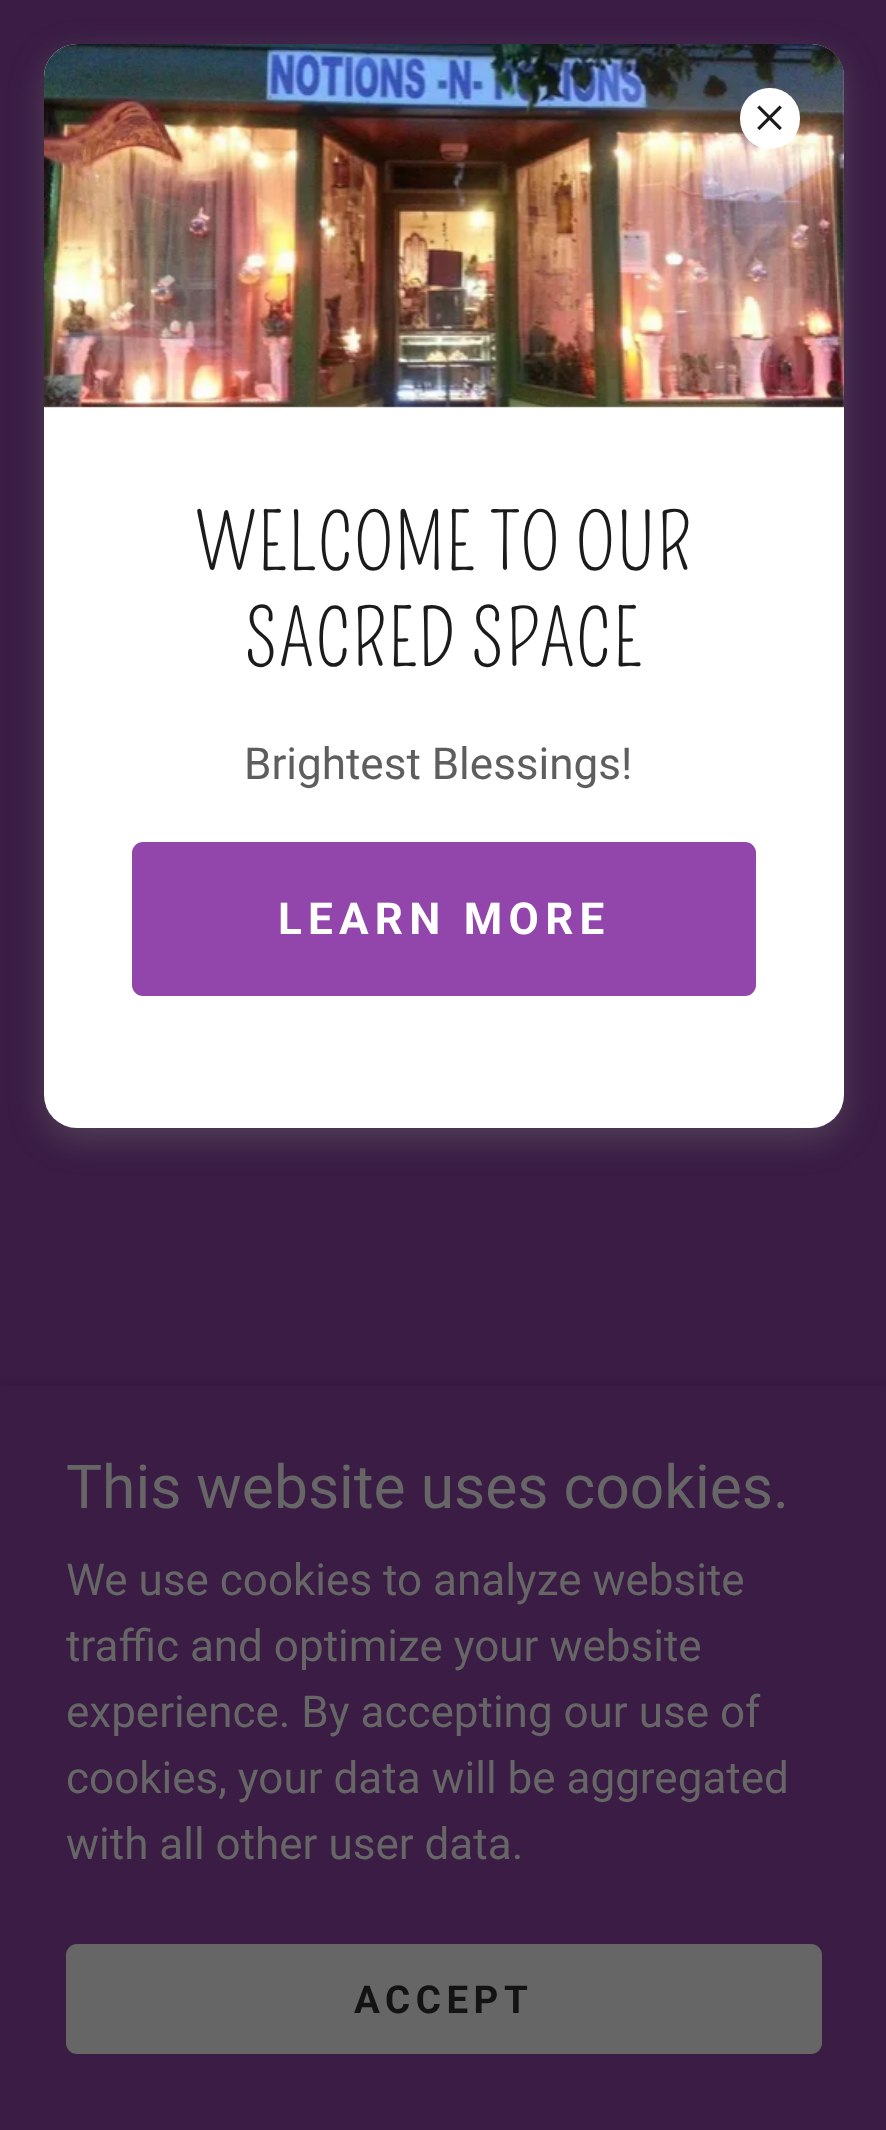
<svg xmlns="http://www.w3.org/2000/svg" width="886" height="2130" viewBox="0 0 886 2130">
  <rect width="100%" height="100%" fill="#3a1c44"/>
  <rect x="44" y="55" width="800" height="1084" rx="33" fill="#75757566" filter="blur(16.5px)"/>
  <rect x="44" y="44" width="800" height="1084" rx="33" fill="#fff"/>
  <image x="44" y="44" width="800" height="364" href="img/2.png"/>
  <rect x="740" y="88" width="60" height="61" rx="30" fill="#fff"/>
  <image x="757" y="105" width="25" height="25" href="img/1.png"/>
  <rect x="132" y="842" width="624" height="154" rx="11" fill="#9246ab"/>
  <path d="M0 1392h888v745H0z" fill="#0000004d" filter="blur(8px)"/>
  <path d="M0 1386h886v744H0z" fill="#3a1c44"/>
  <rect x="66" y="1944" width="756" height="110" rx="11" fill="#666"/>
  <g font-family="Pompiere" font-size="77" letter-spacing="1.5" fill="#1b1b1b">
    <text x="195" y="570">WELCOME TO OUR</text>
    <text x="245" y="666">SACRED SPACE</text>
  </g>
  <text x="244" y="779" font-family="Roboto" font-size="44" fill="#5e5e5e">Brightest Blessings!</text>
  <text x="278" y="934" font-family="Roboto" font-size="44" font-weight="bold" letter-spacing="6.25" fill="#fff">LEARN MORE</text>
  <text x="66" y="1508" font-family="Roboto" font-size="60.5" fill="#666">This website uses cookies.</text>
  <g font-family="Roboto" font-size="44" fill="#666">
    <text x="66" y="1595">We use cookies to analyze website</text>
    <text x="66" y="1661">traffic and optimize your website</text>
    <text x="66" y="1727">experience. By accepting our use of</text>
    <text x="66" y="1793">cookies, your data will be aggregated</text>
    <text x="66" y="1859">with all other user data.</text>
  </g>
  <text x="354" y="2013" font-family="Roboto" font-size="38.5" font-weight="bold" letter-spacing="5.5" fill="#131313">ACCEPT</text>
</svg>
